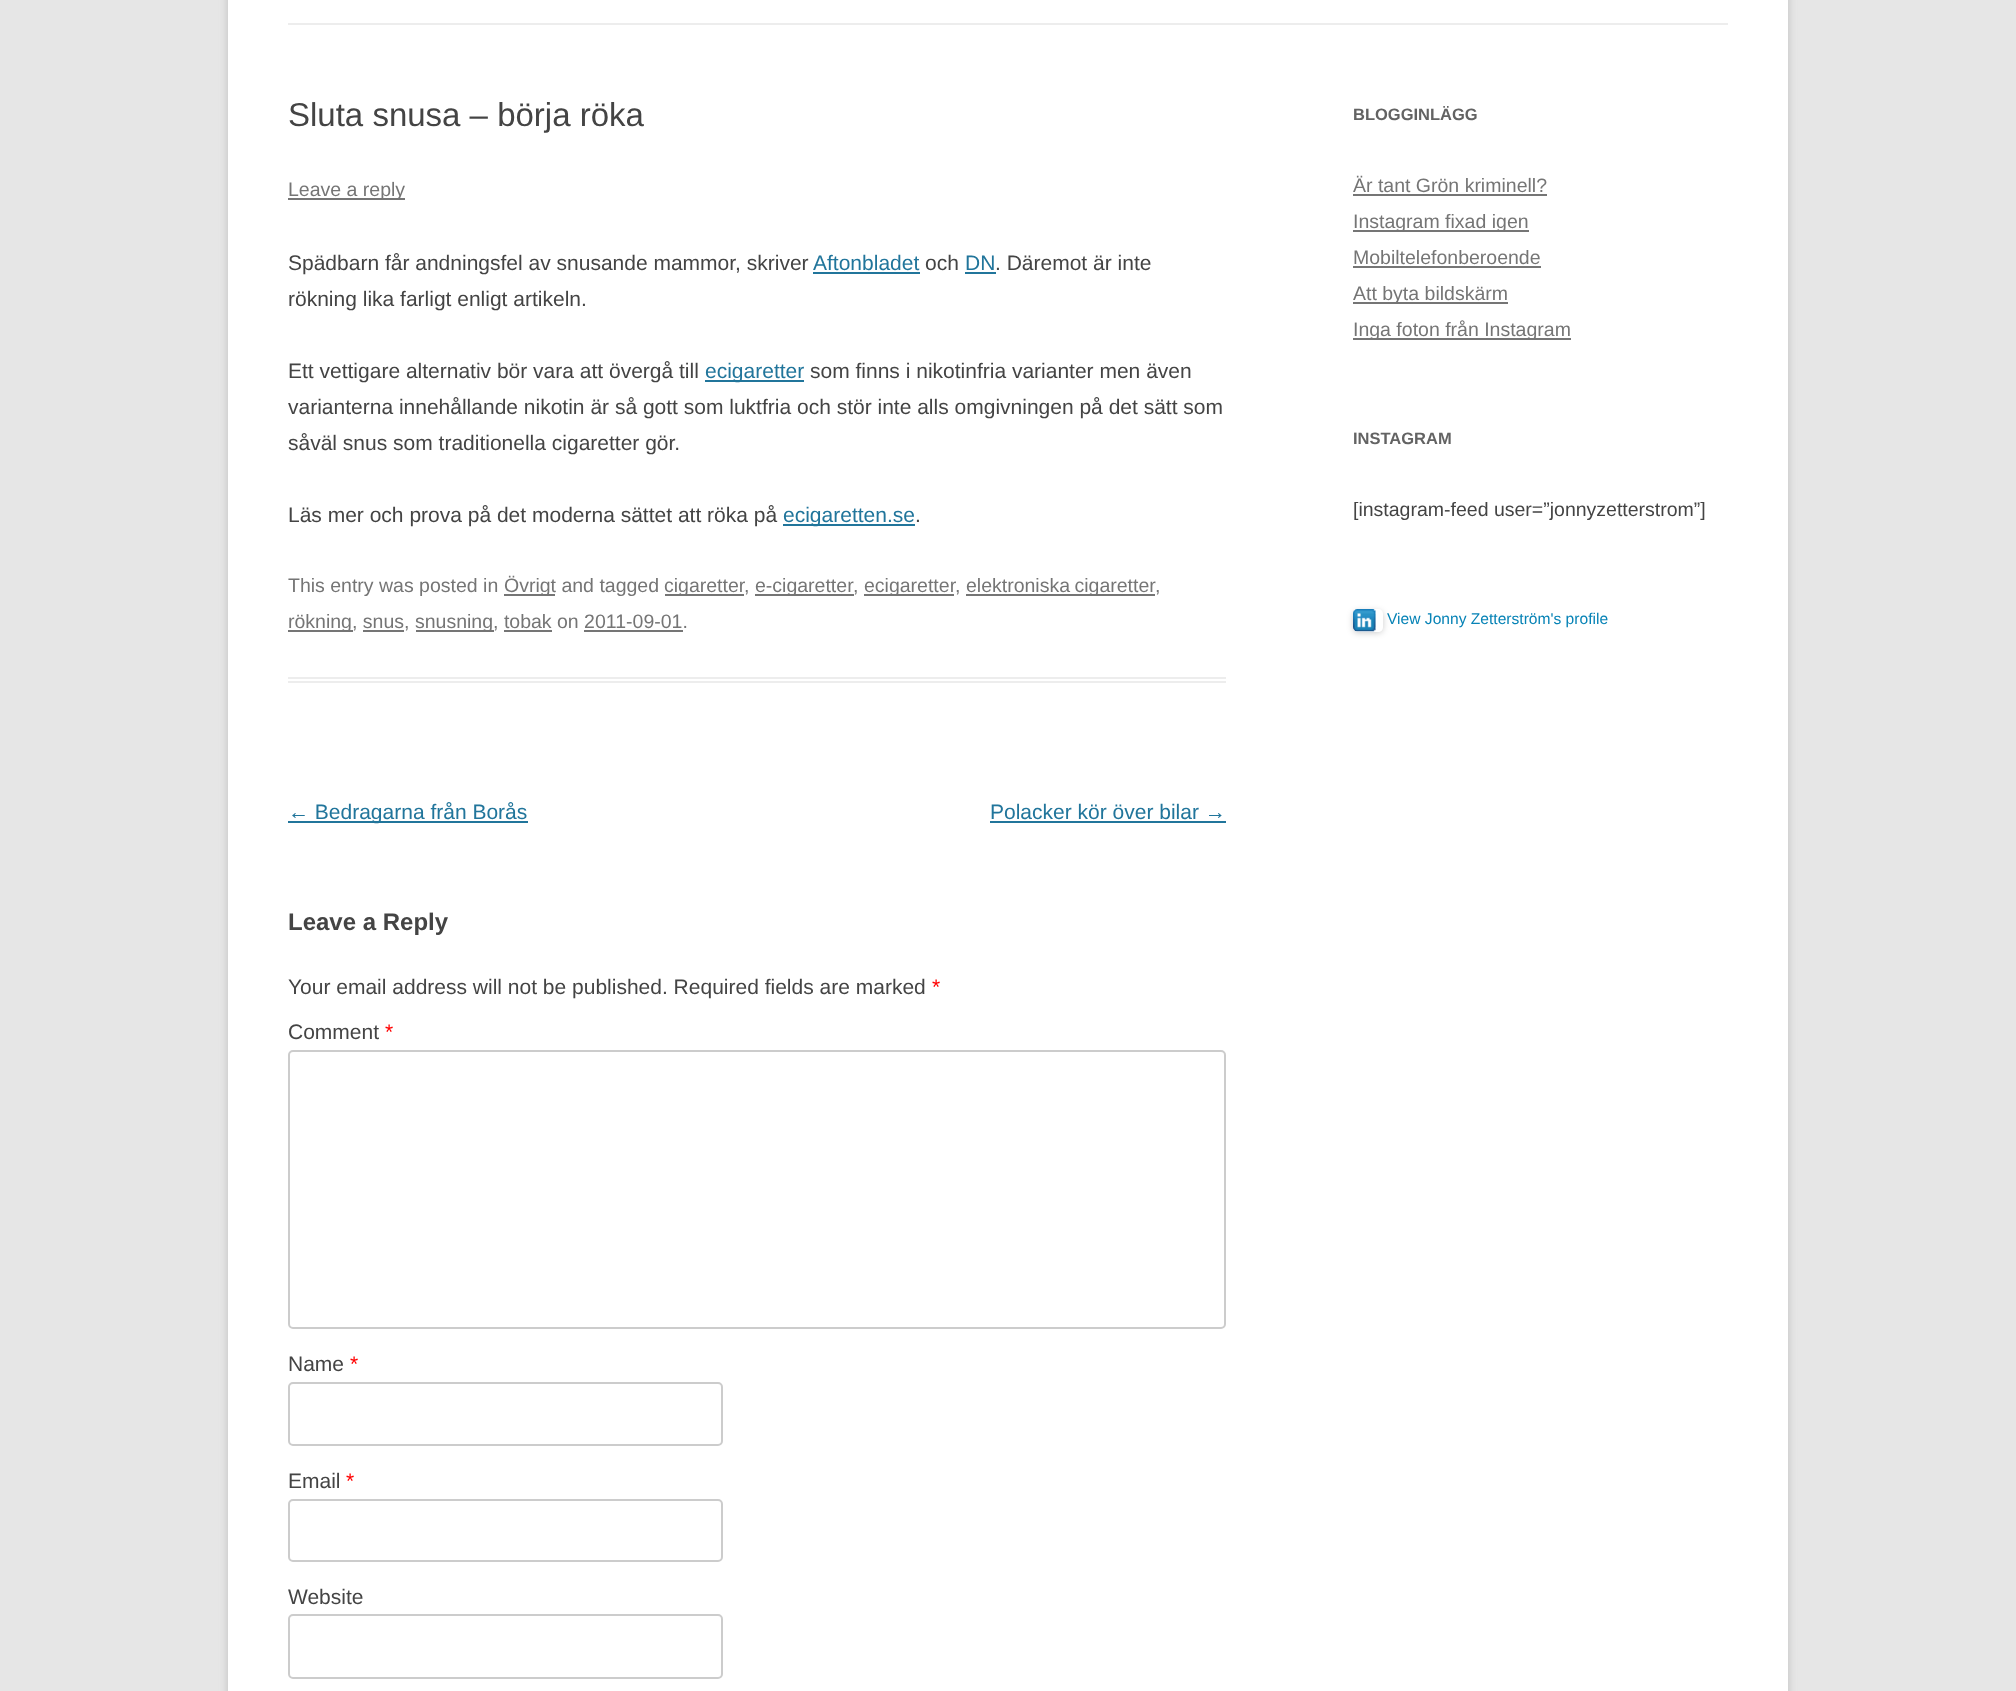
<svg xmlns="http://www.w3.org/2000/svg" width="2016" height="1691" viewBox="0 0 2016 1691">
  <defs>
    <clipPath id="clip1"><path d="M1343 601H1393V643H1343ZM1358 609H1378C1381 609 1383 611 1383 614V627C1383 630 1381 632 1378 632H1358C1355 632 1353 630 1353 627V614C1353 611 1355 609 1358 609Z" clip-rule="evenodd"/></clipPath>
  </defs>
  <rect width="100%" height="100%" fill="#e6e6e6"/>
  <path d="M228 -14h1560v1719H228z" fill="#6464644d" filter="blur(4.5px)"/>
  <path d="M228 0h1560v1691H228z" fill="#fff"/>
  <path d="M288 23h1440v2H288z" fill="#ededed"/>
  <path d="M288 677h938v2H288z" fill="#ededed"/>
  <path d="M288 681h938v2H288z" fill="#ededed"/>
  <path d="M288 198h117v2H288z" fill="#757575"/>
  <path d="M813 272h107v2H813z" fill="#21759b"/>
  <path d="M965 272h31v2H965z" fill="#21759b"/>
  <path d="M705 380h99v2H705z" fill="#21759b"/>
  <path d="M783 524h132v2H783z" fill="#21759b"/>
  <path d="M504 594h51v2H504z" fill="#757575"/>
  <path d="M665 594h79v2H665z" fill="#757575"/>
  <path d="M755 594h99v2H755z" fill="#757575"/>
  <path d="M864 594h90v2H864z" fill="#757575"/>
  <path d="M966 594h189v2H966z" fill="#757575"/>
  <path d="M288 630h65v2H288z" fill="#757575"/>
  <path d="M416 630h78v2H416z" fill="#757575"/>
  <path d="M363 630h41v2H363z" fill="#757575"/>
  <path d="M504 630h48v2H504z" fill="#757575"/>
  <path d="M584 630h99v2H584z" fill="#757575"/>
  <path d="M288 821h240v2H288z" fill="#21759b"/>
  <path d="M990 821h236v2H990z" fill="#21759b"/>
  <rect x="289" y="1051" width="936" height="277" rx="4" fill="none" stroke="#ccc" stroke-width="2"/>
  <rect x="289" y="1383" width="433" height="62" rx="4" fill="none" stroke="#ccc" stroke-width="2"/>
  <rect x="289" y="1500" width="433" height="61" rx="4" fill="none" stroke="#ccc" stroke-width="2"/>
  <rect x="289" y="1615" width="433" height="63" rx="4" fill="none" stroke="#ccc" stroke-width="2"/>
  <path d="M1353 194h194v2H1353z" fill="#757575"/>
  <path d="M1353 230h176v2H1353z" fill="#757575"/>
  <path d="M1353 266h188v2H1353z" fill="#757575"/>
  <path d="M1353 302h155v2H1353z" fill="#757575"/>
  <path d="M1353 338h218v2H1353z" fill="#757575"/>
  <g clip-path="url(#clip1)">
    <rect x="1353" y="611" width="30" height="22" rx="5" fill="#00000033" filter="blur(3px)"/>
  </g>
  <image x="1353" y="609" width="23" height="23" href="img/1.png"/>
  <text x="288" y="126" font-family="Liberation Sans" font-size="33" fill="#444">Sluta snusa – börja röka</text>
  <text x="288" y="196" font-family="Liberation Sans" font-size="19.5" fill="#757575">Leave a reply</text>
  <text x="288" y="270" font-family="Liberation Sans" font-size="21" fill="#444">Spädbarn får andningsfel av snusande mammor, skriver</text>
  <text x="813" y="270" font-family="Liberation Sans" font-size="21" fill="#21759b">Aftonbladet</text>
  <text x="925" y="270" font-family="Liberation Sans" font-size="21" fill="#444">och</text>
  <text x="965" y="270" font-family="Liberation Sans" font-size="21" fill="#21759b">DN</text>
  <g font-family="Liberation Sans" font-size="21" fill="#444">
    <text x="995" y="270">. Däremot är inte</text>
    <text x="288" y="306">rökning lika farligt enligt artikeln.</text>
    <text x="288" y="378">Ett vettigare alternativ bör vara att övergå till</text>
  </g>
  <text x="705" y="378" font-family="Liberation Sans" font-size="21" fill="#21759b">ecigaretter</text>
  <g font-family="Liberation Sans" font-size="21" fill="#444">
    <text x="810" y="378">som finns i nikotinfria varianter men även</text>
    <text x="288" y="414">varianterna innehållande nikotin är så gott som luktfria och stör inte alls omgivningen på det sätt som</text>
    <text x="288" y="450">såväl snus som traditionella cigaretter gör.</text>
    <text x="288" y="522">Läs mer och prova på det moderna sättet att röka på</text>
  </g>
  <text x="783" y="522" font-family="Liberation Sans" font-size="21" fill="#21759b">ecigaretten.se</text>
  <text x="915" y="522" font-family="Liberation Sans" font-size="21" fill="#444">.</text>
  <g font-family="Liberation Sans" font-size="19.5" fill="#757575">
    <text x="288" y="592">This entry was posted in</text>
    <text x="504" y="592">Övrigt and tagged</text>
    <text x="664" y="592">cigaretter</text>
    <text x="744" y="592">,</text>
    <text x="755" y="592">e-cigaretter</text>
    <text x="853" y="592">,</text>
    <text x="864" y="592">ecigaretter</text>
    <text x="955" y="592">,</text>
    <text x="966" y="592" word-spacing="-1">elektroniska cigaretter</text>
    <text x="1155" y="592">,</text>
    <text x="288" y="628">rökning, snus,</text>
    <text x="415" y="628">snusning, tobak on 2011-09-01.</text>
  </g>
  <g font-family="Liberation Sans" font-size="21" fill="#21759b">
    <text x="288" y="819">← Bedragarna från Borås</text>
    <text x="990" y="819">Polacker kör över bilar →</text>
  </g>
  <text x="288" y="930" font-family="Liberation Sans" font-size="24" font-weight="bold" fill="#444">Leave a Reply</text>
  <text x="288" y="994" font-family="Liberation Sans" font-size="21" fill="#444">Your email address will not be published. Required fields are marked</text>
  <text x="932" y="994" font-family="Liberation Sans" font-size="21" fill="#f00">*</text>
  <text x="288" y="1039" font-family="Liberation Sans" font-size="21" fill="#444">Comment</text>
  <text x="385" y="1039" font-family="Liberation Sans" font-size="21" fill="#f00">*</text>
  <text x="288" y="1371" font-family="Liberation Sans" font-size="21" fill="#444">Name</text>
  <text x="350" y="1371" font-family="Liberation Sans" font-size="21" fill="#f00">*</text>
  <text x="288" y="1488" font-family="Liberation Sans" font-size="21" fill="#444">Email</text>
  <text x="346" y="1488" font-family="Liberation Sans" font-size="21" fill="#f00">*</text>
  <text x="288" y="1604" font-family="Liberation Sans" font-size="21" fill="#444">Website</text>
  <text x="1353" y="120" font-family="Liberation Sans" font-size="16.5" font-weight="bold" fill="#636363">BLOGGINLÄGG</text>
  <g font-family="Liberation Sans" font-size="19.5" fill="#757575">
    <text x="1353" y="192">Är tant Grön kriminell?</text>
    <text x="1353" y="228">Instagram fixad igen</text>
    <text x="1353" y="264">Mobiltelefonberoende</text>
    <text x="1353" y="300">Att byta bildskärm</text>
    <text x="1353" y="336">Inga foton från Instagram</text>
  </g>
  <text x="1353" y="444" font-family="Liberation Sans" font-size="16.5" font-weight="bold" fill="#636363">INSTAGRAM</text>
  <text x="1353" y="516" font-family="Liberation Sans" font-size="19.5" fill="#444">[instagram-feed user=”jonnyzetterstrom”]</text>
  <text x="1387" y="624" font-family="Liberation Sans" font-size="15.6" fill="#0783b6">View Jonny Zetterström's profile</text>
</svg>
